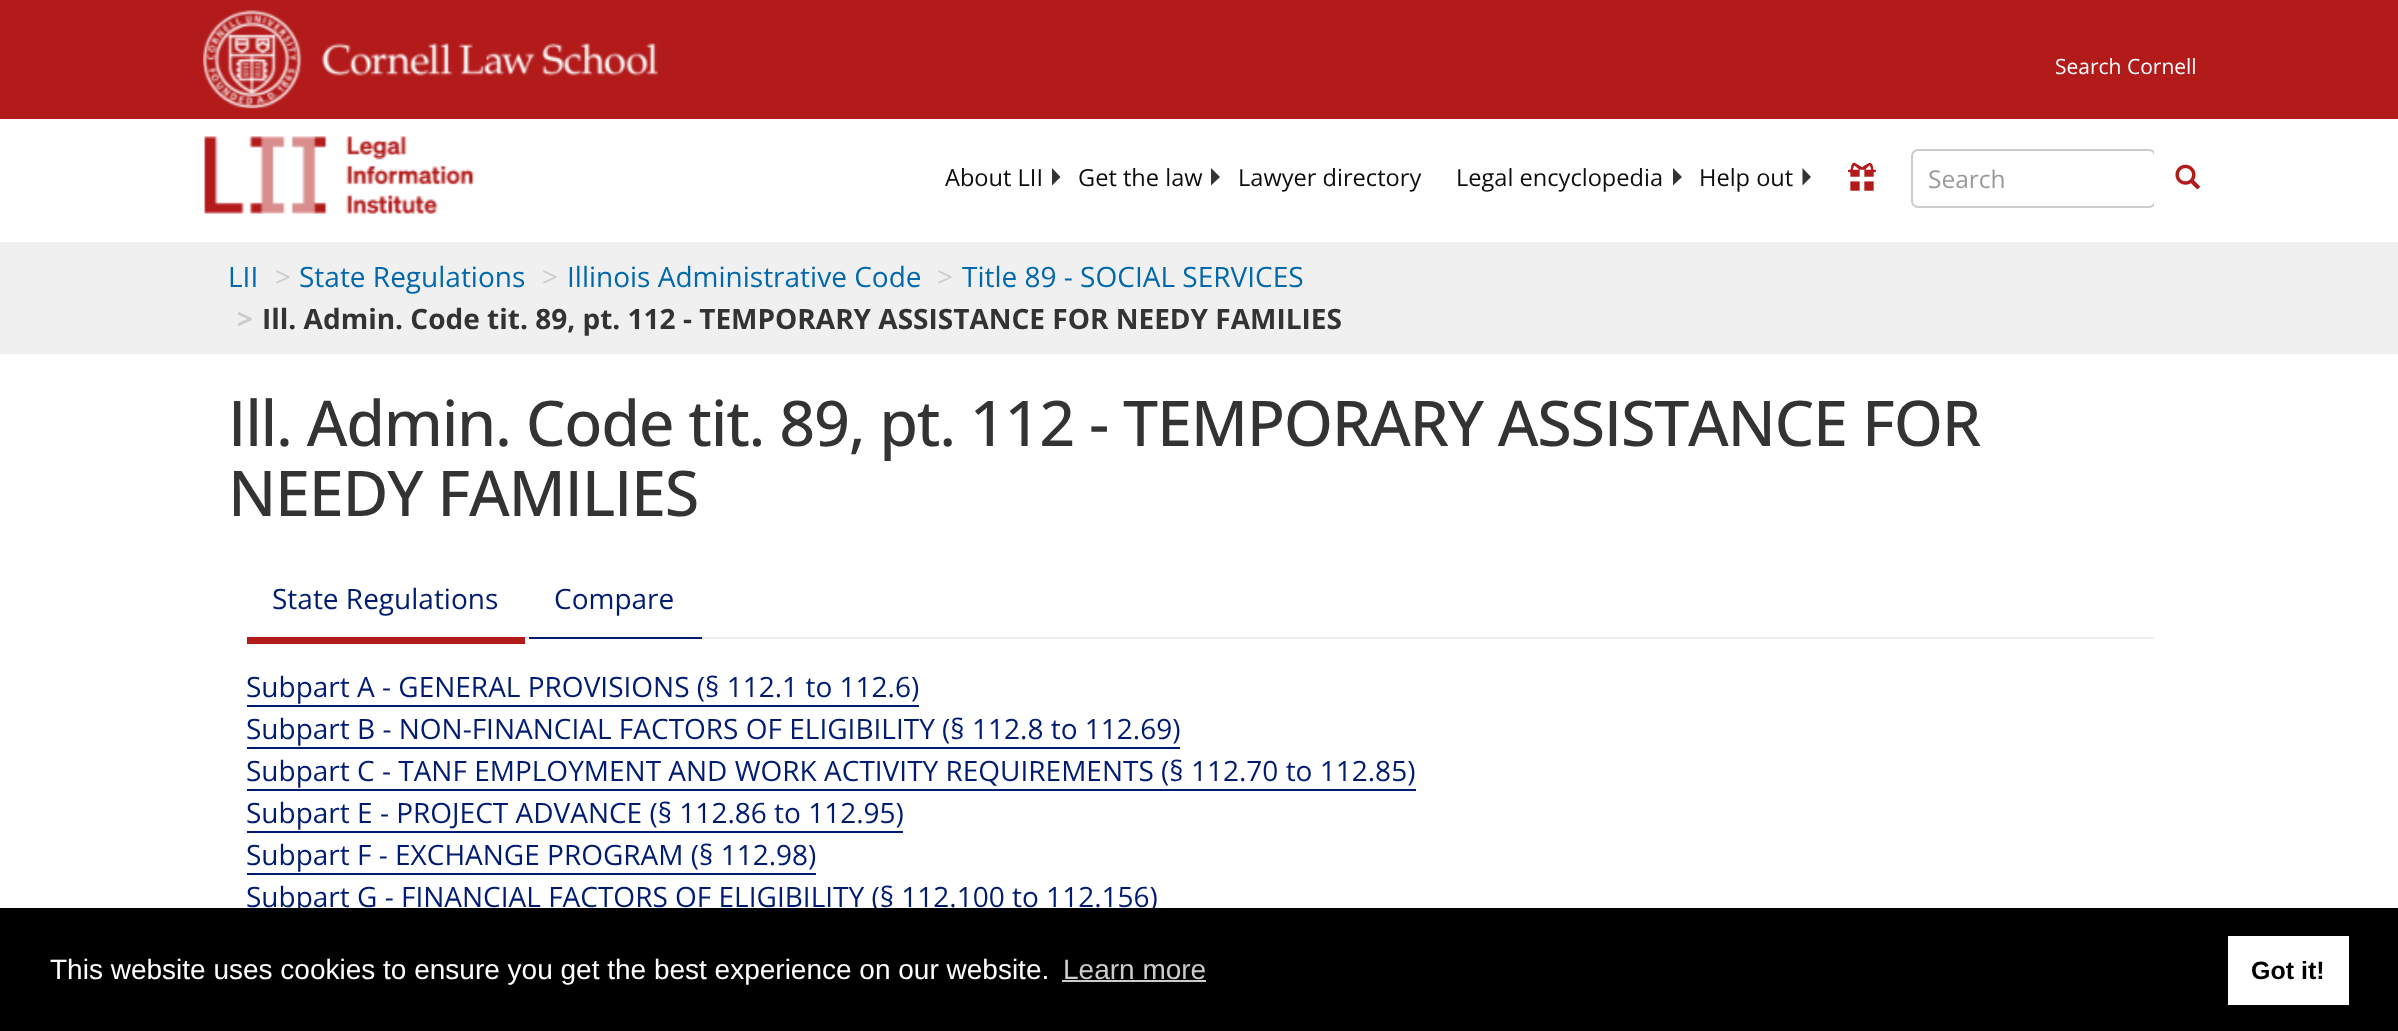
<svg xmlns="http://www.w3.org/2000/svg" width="2398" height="1031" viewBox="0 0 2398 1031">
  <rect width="100%" height="100%" fill="#fff"/>
  <path d="M0 0h2398v119H0z" fill="#b31b1b"/>
  <image x="202" y="10" width="100" height="99" href="img/1.png"/>
  <image x="321" y="42" width="337" height="34" href="img/2.png"/>
  <image x="204" y="136" width="270" height="78" href="img/3.png"/>
  <path d="M1052 185.5V168L1060.5 177Z" fill="#333"/>
  <path d="M1211 185.5V168L1220 177Z" fill="#333"/>
  <path d="M1673 185.5V168L1682 177Z" fill="#333"/>
  <path d="M1802.5 185.5V168L1811 177Z" fill="#333"/>
  <image x="1848" y="162" width="28" height="29" href="img/4.png"/>
  <rect x="1912" y="150" width="243" height="57" rx="6" fill="none" stroke="#ccc" stroke-width="2"/>
  <path d="M2154 151H2216C2220 151 2223 154 2223 158V200C2223 204 2220 207 2216 207H2154Z" fill="#fff"/>
  <image x="2175" y="164" width="25" height="26" href="img/5.png"/>
  <path d="M0 242h2398v112H0z" fill="#f0f0f0"/>
  <path d="M247 637h278v7H247z" fill="#b31b1b"/>
  <path d="M525 637h1629v2H525z" fill="#eee"/>
  <path d="M529 637h173v2H529z" fill="#001c72"/>
  <path d="M247 705h672v2H247z" fill="#001c72"/>
  <path d="M247 747h933v2H247z" fill="#001c72"/>
  <path d="M247 789h1169v2H247z" fill="#001c72"/>
  <path d="M247 831h656v2H247z" fill="#001c72"/>
  <path d="M247 873h569v2H247z" fill="#001c72"/>
  <text x="2055" y="74" font-family="Open Sans" font-size="21" fill="#fff">Search Cornell</text>
  <g font-family="Open Sans" font-size="23.6" fill="#0e0d0e">
    <text x="945" y="186">About LII</text>
    <text x="1078" y="186">Get the law</text>
    <text x="1238" y="186">Lawyer directory</text>
    <text x="1456" y="186">Legal encyclopedia</text>
    <text x="1699" y="186">Help out</text>
  </g>
  <text x="1928" y="188" font-family="Open Sans" font-size="24.5" fill="#999">Search</text>
  <text x="228" y="287" font-family="Open Sans" font-size="28" fill="#0068ac">LII</text>
  <text x="275" y="287" font-family="Open Sans" font-size="28" fill="#ccc">&gt;</text>
  <text x="299" y="287" font-family="Open Sans" font-size="28" fill="#0068ac">State Regulations</text>
  <text x="542" y="287" font-family="Open Sans" font-size="28" fill="#ccc">&gt;</text>
  <text x="567" y="287" font-family="Open Sans" font-size="28" fill="#0068ac">Illinois Administrative Code</text>
  <text x="937" y="287" font-family="Open Sans" font-size="28" fill="#ccc">&gt;</text>
  <text x="962" y="287" font-family="Open Sans" font-size="28" fill="#0068ac">Title 89 - SOCIAL SERVICES</text>
  <text x="237" y="329" font-family="Open Sans" font-size="28" font-weight="bold" fill="#ccc">&gt;</text>
  <text x="262" y="329" font-family="Open Sans" font-size="28" font-weight="bold" fill="#333">Ill. Admin. Code tit. 89, pt. 112 - TEMPORARY ASSISTANCE FOR NEEDY FAMILIES</text>
  <g font-family="Open Sans" font-size="63" font-weight="500" letter-spacing="-1.3" fill="#333">
    <text x="228" y="446">Ill. Admin. Code tit. 89, pt. 112 - TEMPORARY ASSISTANCE FOR</text>
    <text x="228" y="516">NEEDY FAMILIES</text>
  </g>
  <g font-family="Open Sans" font-size="28" fill="#001c72">
    <text x="272" y="609">State Regulations</text>
    <text x="554" y="609">Compare</text>
    <text x="246" y="697">Subpart A - GENERAL PROVISIONS (§ 112.1 to 112.6)</text>
    <text x="246" y="739">Subpart B - NON-FINANCIAL FACTORS OF ELIGIBILITY (§ 112.8 to 112.69)</text>
    <text x="246" y="781">Subpart C - TANF EMPLOYMENT AND WORK ACTIVITY REQUIREMENTS (§ 112.70 to 112.85)</text>
    <text x="246" y="823">Subpart E - PROJECT ADVANCE (§ 112.86 to 112.95)</text>
    <text x="246" y="865">Subpart F - EXCHANGE PROGRAM (§ 112.98)</text>
    <text x="246" y="907">Subpart G - FINANCIAL FACTORS OF ELIGIBILITY (§ 112.100 to 112.156)</text>
  </g>
  <path d="M0 908h2398v123H0z" fill="#000"/>
  <text x="50" y="979" font-family="Liberation Sans" font-size="28" fill="#fff">This website uses cookies to ensure you get the best experience on our website.</text>
  <text x="1063" y="979" font-family="Liberation Sans" font-size="28" fill="#ccc">Learn more</text>
  <path d="M1062 980h144v2H1062z" fill="#ccc"/>
  <path d="M2228 936h121v69H2228z" fill="#fff"/>
  <text x="2251" y="979" font-family="Liberation Sans" font-size="25" font-weight="bold" fill="#000">Got it!</text>
</svg>
